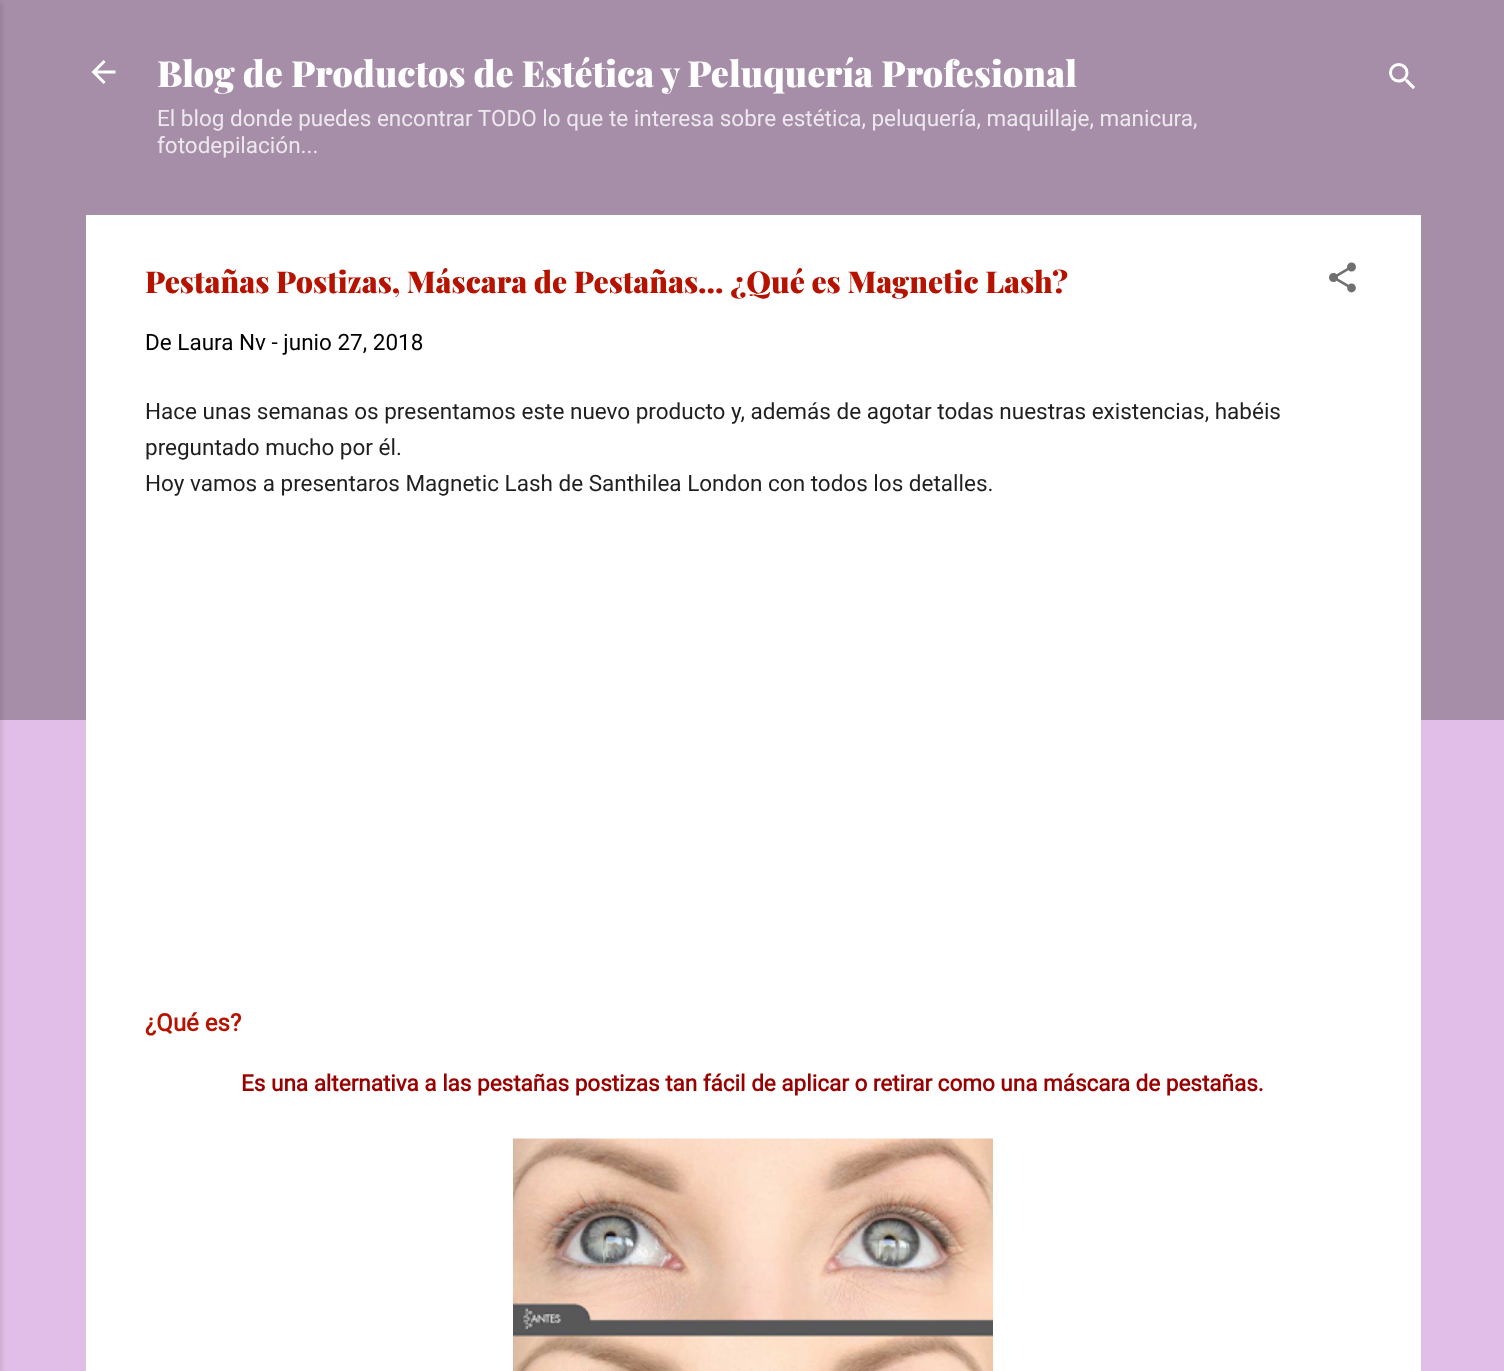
<svg xmlns="http://www.w3.org/2000/svg" width="1504" height="1371" viewBox="0 0 1504 1371">
  <rect width="100%" height="100%" fill="#e1bee7"/>
  <path d="M0 0h1504v720H0z" fill="#a68ea9"/>
  <path d="M-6 2h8v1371H-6z" fill="#0000001a" filter="blur(2px)"/>
  <image x="91" y="60" width="25" height="24" href="img/1.png"/>
  <image x="1389" y="63" width="26" height="26" href="img/2.png"/>
  <path d="M86 215h1335v1156H86z" fill="#fff"/>
  <image x="1329" y="262" width="27" height="31" href="img/3.png"/>
  <image x="513" y="1138" width="480" height="233" href="img/4.png"/>
  <text x="157" y="87" font-family="Playfair Display" font-size="36" font-weight="900" fill="#fff">Blog de Productos de Estética y Peluquería Profesional</text>
  <g font-family="Roboto" font-size="22.5" fill="#ede8ee">
    <text x="157" y="126">El blog donde puedes encontrar TODO lo que te interesa sobre estética, peluquería, maquillaje, manicura,</text>
    <text x="157" y="153">fotodepilación...</text>
  </g>
  <text x="145" y="293" font-family="Playfair Display" font-size="30" font-weight="900" fill="#b51200">Pestañas Postizas, Máscara de Pestañas... ¿Qué es Magnetic Lash?</text>
  <text x="145" y="350" font-family="Roboto" font-size="22.5" fill="#000">De Laura Nv - junio 27, 2018</text>
  <g font-family="Roboto" font-size="22.5" fill="#201f20">
    <text x="145" y="419">Hace unas semanas os presentamos este nuevo producto y, además de agotar todas nuestras existencias, habéis</text>
    <text x="145" y="455">preguntado mucho por él.</text>
    <text x="145" y="491">Hoy vamos a presentaros Magnetic Lash de Santhilea London con todos los detalles.</text>
  </g>
  <text x="145" y="1031" font-family="Roboto" font-size="24" font-weight="bold" fill="#b51200">¿Qué es?</text>
  <text x="241" y="1091" font-family="Roboto" font-size="22.5" font-weight="bold" fill="#900">Es una alternativa a las pestañas postizas tan fácil de aplicar o retirar como una máscara de pestañas.</text>
</svg>
